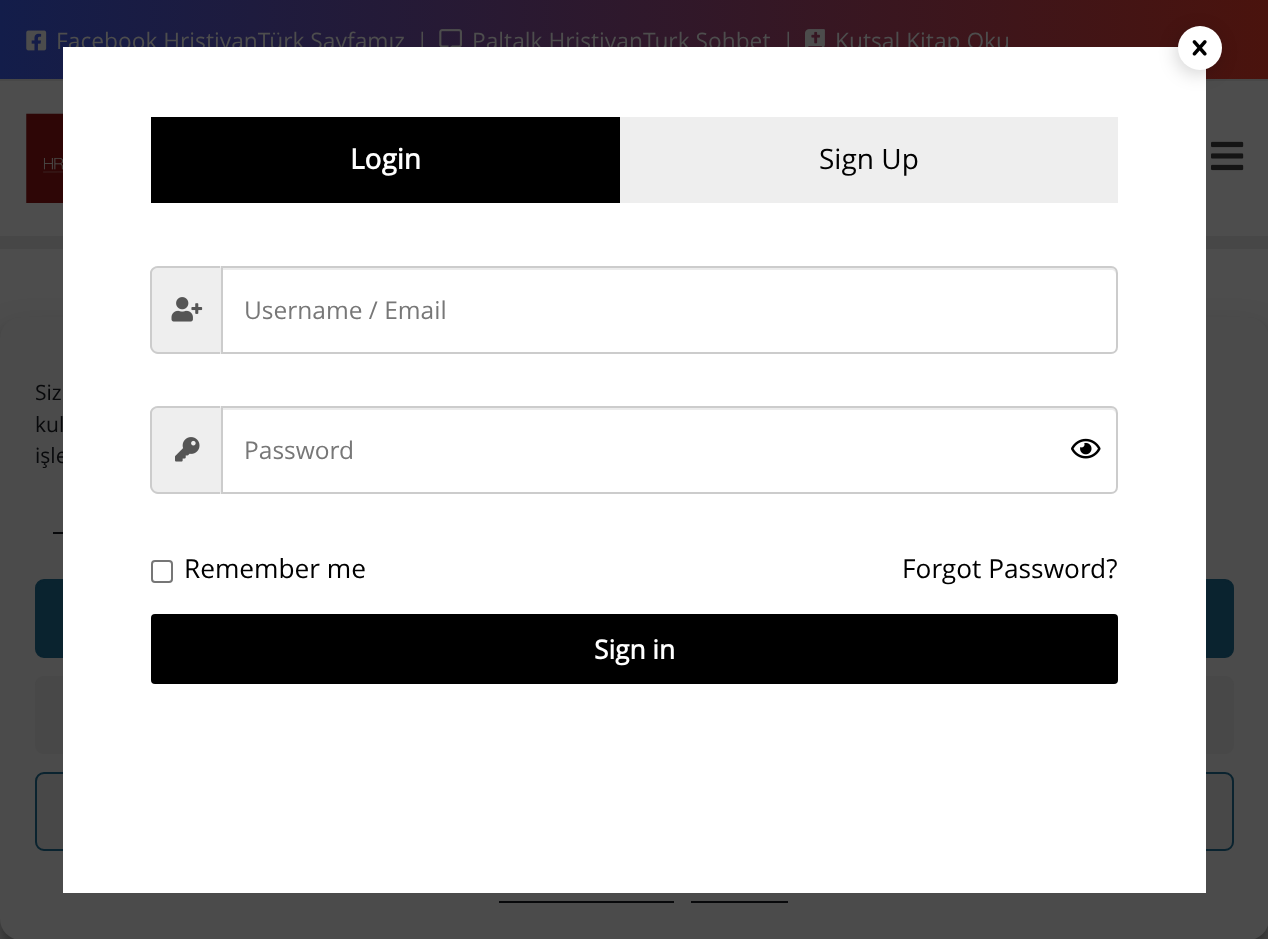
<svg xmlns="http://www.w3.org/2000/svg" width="1268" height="939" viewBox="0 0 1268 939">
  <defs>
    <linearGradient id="g1" gradientUnits="userSpaceOnUse" x1="0" y1="39" x2="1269" y2="39"><stop offset="0" stop-color="#131d4a"/><stop offset="1" stop-color="#4a130d"/></linearGradient>
  </defs>
  <rect width="100%" height="100%" fill="#4d4d4d"/>
  <path d="M0 236h1268v13H0z" fill="#474747"/>
  <path d="M0 0h1268v79H0z" fill="url(#g1)"/>
  <path d="M0 79h1268v2H0z" fill="#474747"/>
  <image x="26" y="30" width="21" height="21" href="img/1.png"/>
  <image x="439" y="29" width="23" height="18" href="img/2.png"/>
  <image x="805" y="29" width="20" height="18" href="img/3.png"/>
  <image x="26" y="113" width="37" height="90" href="img/4.png"/>
  <image x="1211" y="141" width="33" height="30" href="img/5.png"/>
  <rect y="327" width="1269" height="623" rx="21" fill="#0000003b" filter="blur(5px)"/>
  <rect y="334" width="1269" height="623" rx="21" fill="#00000030" filter="blur(17.5px)"/>
  <rect y="317" width="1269" height="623" rx="21" fill="#4b4b4b"/>
  <path d="M53 532h10v2H53z" fill="#08090b"/>
  <rect x="36" y="580" width="1197" height="77" rx="8" fill="#0a232f" stroke="#0a232f" stroke-width="2"/>
  <rect x="35" y="676" width="1199" height="78" rx="9" fill="#484848"/>
  <rect x="36" y="773" width="1197" height="77" rx="8" fill="#484848" stroke="#0a232f" stroke-width="2"/>
  <path d="M499 901h175v2H499z" fill="#08090b"/>
  <path d="M691 901h97v2H691z" fill="#08090b"/>
  <g font-family="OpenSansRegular" font-size="22.75" fill="#4d4d4d">
    <text x="56" y="49">Facebook HristiyanTürk Sayfamız</text>
    <text x="416" y="49">|</text>
    <text x="472" y="49">Paltalk HristiyanTurk Sohbet</text>
    <text x="782" y="49">|</text>
    <text x="835" y="49">Kutsal Kitap Oku</text>
  </g>
  <g font-family="OpenSansRegular" font-size="21" fill="#08090b">
    <text x="35" y="400">Siz</text>
    <text x="35" y="432">kul</text>
    <text x="35" y="463">işle</text>
  </g>
  <path d="M63 47h1143v846H63z" fill="#fff"/>
  <rect x="1176" y="30" width="44" height="44" rx="22" fill="#0000002b" filter="blur(9px)"/>
  <circle cx="1200" cy="48" r="22" fill="#fff"/>
  <image x="1192" y="40" width="15" height="16" href="img/6.png"/>
  <path d="M151 117h469v86H151z" fill="#000"/>
  <text x="350" y="169" font-family="OpenSansRegular" font-size="28" font-weight="bold" fill="#fff">Login</text>
  <path d="M620 117h498v86H620z" fill="#eee"/>
  <text x="819" y="169" font-family="OpenSansRegular" font-size="28" fill="#000">Sign Up</text>
  <path d="M158 266H221V354H158C154 354 151 351 151 347V273C151 269 154 266 158 266Z" fill="#eee"/>
  <path d="M158 266H220V354H158C154 354 150 350 150 346V273C150 269 154 266 158 266ZM158 268H220V352H158C155 352 152 349 152 346V273C152 270 155 268 158 268Z" fill="#ccc" fill-rule="evenodd"/>
  <image x="171" y="297" width="32" height="25" href="img/7.png"/>
  <path d="M222 270H1111C1114 270 1116 272 1116 275V348V351C1116 350 1117 348 1117 347V273C1117 270 1115 268 1112 268H222Z" fill="#ececec"/>
  <path d="M222 267H1111C1114.5 267 1117 269.5 1117 273V347C1117 350.5 1114.5 353 1111 353H222Z" fill="none" stroke="#ccc" stroke-width="2"/>
  <text x="244" y="319" font-family="OpenSansRegular" font-size="24.5" fill="#777">Username / Email</text>
  <path d="M158 406H221V494H158C154 494 151 491 151 487V413C151 409 154 406 158 406Z" fill="#eee"/>
  <path d="M158 406H220V494H158C154 494 150 490 150 486V413C150 409 154 406 158 406ZM158 408H220V492H158C155 492 152 489 152 486V413C152 410 155 408 158 408Z" fill="#ccc" fill-rule="evenodd"/>
  <image x="175" y="437" width="25" height="25" href="img/8.png"/>
  <path d="M222 410H1111C1114 410 1116 412 1116 415V488V491C1116 490 1117 488 1117 487V413C1117 410 1115 408 1112 408H222Z" fill="#ececec"/>
  <path d="M222 407H1111C1114.5 407 1117 409.5 1117 413V487C1117 490.5 1114.5 493 1111 493H222Z" fill="none" stroke="#ccc" stroke-width="2"/>
  <text x="244" y="459" font-family="OpenSansRegular" font-size="24.5" fill="#777">Password</text>
  <image x="1071" y="438" width="30" height="21" href="img/9.png"/>
  <rect x="152" y="561" width="20" height="21" rx="3" fill="none" stroke="#767676" stroke-width="2"/>
  <g font-family="OpenSansRegular" font-size="26.25" fill="#000">
    <text x="184" y="578">Remember me</text>
    <text x="902" y="578">Forgot Password?</text>
  </g>
  <rect x="151" y="614" width="967" height="70" rx="4" fill="#000"/>
  <text x="594" y="659" font-family="OpenSansRegular" font-size="26.25" font-weight="bold" fill="#fff">Sign in</text>
</svg>
